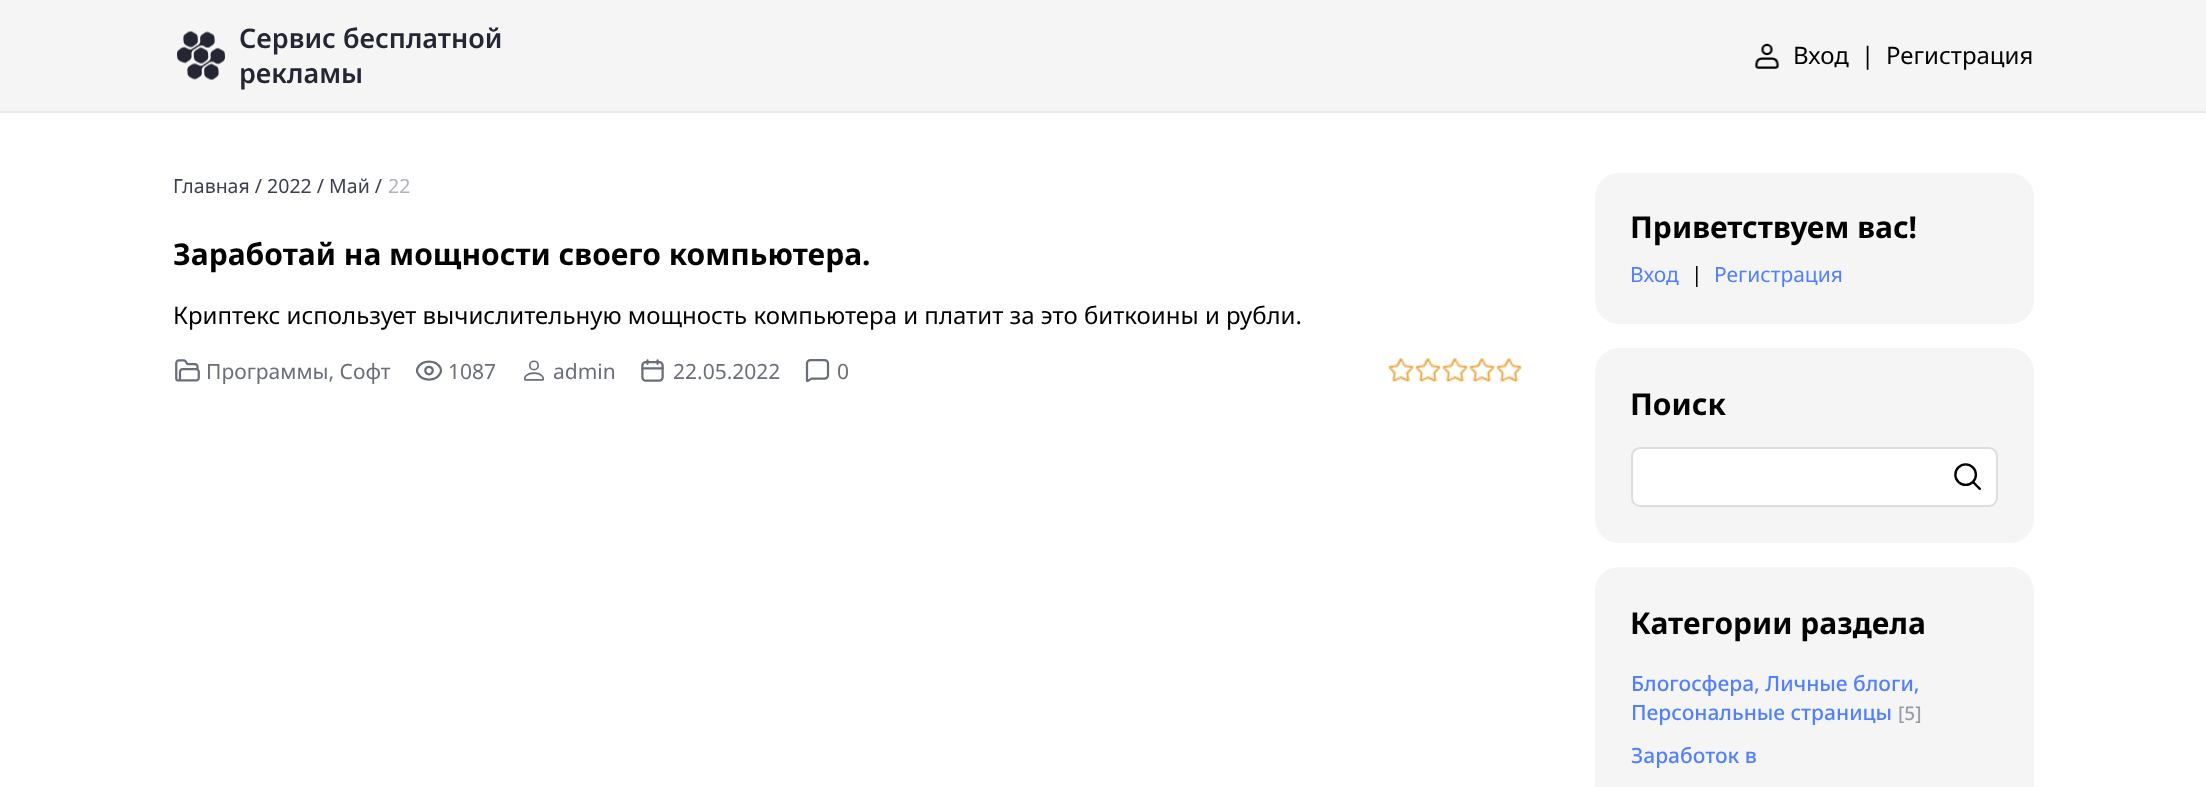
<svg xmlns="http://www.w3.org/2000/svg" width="2206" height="787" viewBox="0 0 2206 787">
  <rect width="100%" height="100%" fill="#fff"/>
  <path d="M0 0h2206v111H0z" fill="#f5f5f6"/>
  <path d="M0 111h2206v2H0z" fill="#eaeaec"/>
  <image x="177" y="31" width="48" height="49" href="img/1.png"/>
  <image x="1754" y="43" width="26" height="26" href="img/2.png"/>
  <image x="175" y="359" width="25" height="23" href="img/3.png"/>
  <image x="415" y="360" width="28" height="21" href="img/4.png"/>
  <image x="523" y="360" width="22" height="21" href="img/5.png"/>
  <image x="641" y="359" width="23" height="23" href="img/6.png"/>
  <image x="805" y="359" width="25" height="24" href="img/7.png"/>
  <image x="1388" y="358" width="134" height="25" href="img/8.png"/>
  <rect x="1595" y="173" width="439" height="151" rx="24" fill="#f5f5f6"/>
  <rect x="1595" y="348" width="439" height="195" rx="24" fill="#f5f5f6"/>
  <rect x="1632" y="448" width="365" height="58" rx="8" fill="#fff" stroke="#dddde1" stroke-width="2"/>
  <image x="1954" y="463" width="27" height="27" href="img/9.png"/>
  <rect x="1595" y="567" width="439" height="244" rx="24" fill="#f5f5f6"/>
  <g font-family="Noto Sans" font-size="27" font-weight="600" fill="#252634">
    <text x="239" y="48">Сервис бесплатной</text>
    <text x="239" y="83">рекламы</text>
  </g>
  <g font-family="Noto Sans" font-size="24" fill="#020203">
    <text x="1793" y="64">Вход</text>
    <text x="1861" y="64">|</text>
    <text x="1886" y="64">Регистрация</text>
  </g>
  <text x="173" y="193" font-family="Noto Sans" font-size="19.5" fill="#3c3f4f">Главная / 2022 / Май /</text>
  <text x="388" y="193" font-family="Noto Sans" font-size="19.5" fill="#b1b2b9">22</text>
  <text x="173" y="265" font-family="Noto Sans" font-size="30" font-weight="bold" fill="#020203">Заработай на мощности своего компьютера.</text>
  <text x="173" y="324" font-family="Noto Sans" font-size="24" fill="#020203">Криптекс использует вычислительную мощность компьютера и платит за это биткоины и рубли.</text>
  <g font-family="Noto Sans" font-size="21" fill="#6a6e7b">
    <text x="206" y="379">Программы, Софт</text>
    <text x="448" y="379">1087</text>
    <text x="553" y="379">admin</text>
    <text x="673" y="379">22.05.2022</text>
    <text x="837" y="379">0</text>
  </g>
  <text x="1630" y="238" font-family="Noto Sans" font-size="30" font-weight="bold" fill="#020203">Приветствуем вас!</text>
  <text x="1630" y="282" font-family="Noto Sans" font-size="21" fill="#507fff">Вход</text>
  <text x="1691" y="282" font-family="Noto Sans" font-size="21" fill="#020203">|</text>
  <text x="1714" y="282" font-family="Noto Sans" font-size="21" fill="#507fff">Регистрация</text>
  <g font-family="Noto Sans" font-size="30" font-weight="bold" fill="#020203">
    <text x="1630" y="415">Поиск</text>
    <text x="1630" y="634">Категории раздела</text>
  </g>
  <g font-family="Noto Sans" font-size="21" font-weight="500" fill="#507fff">
    <text x="1631" y="691">Блогосфера, Личные блоги,</text>
    <text x="1631" y="720">Персональные страницы</text>
  </g>
  <text x="1898" y="720" font-family="Noto Sans" font-size="19" font-weight="500" fill="#9a9da7">[5]</text>
  <text x="1631" y="763" font-family="Noto Sans" font-size="21" font-weight="500" fill="#507fff">Заработок в</text>
</svg>
